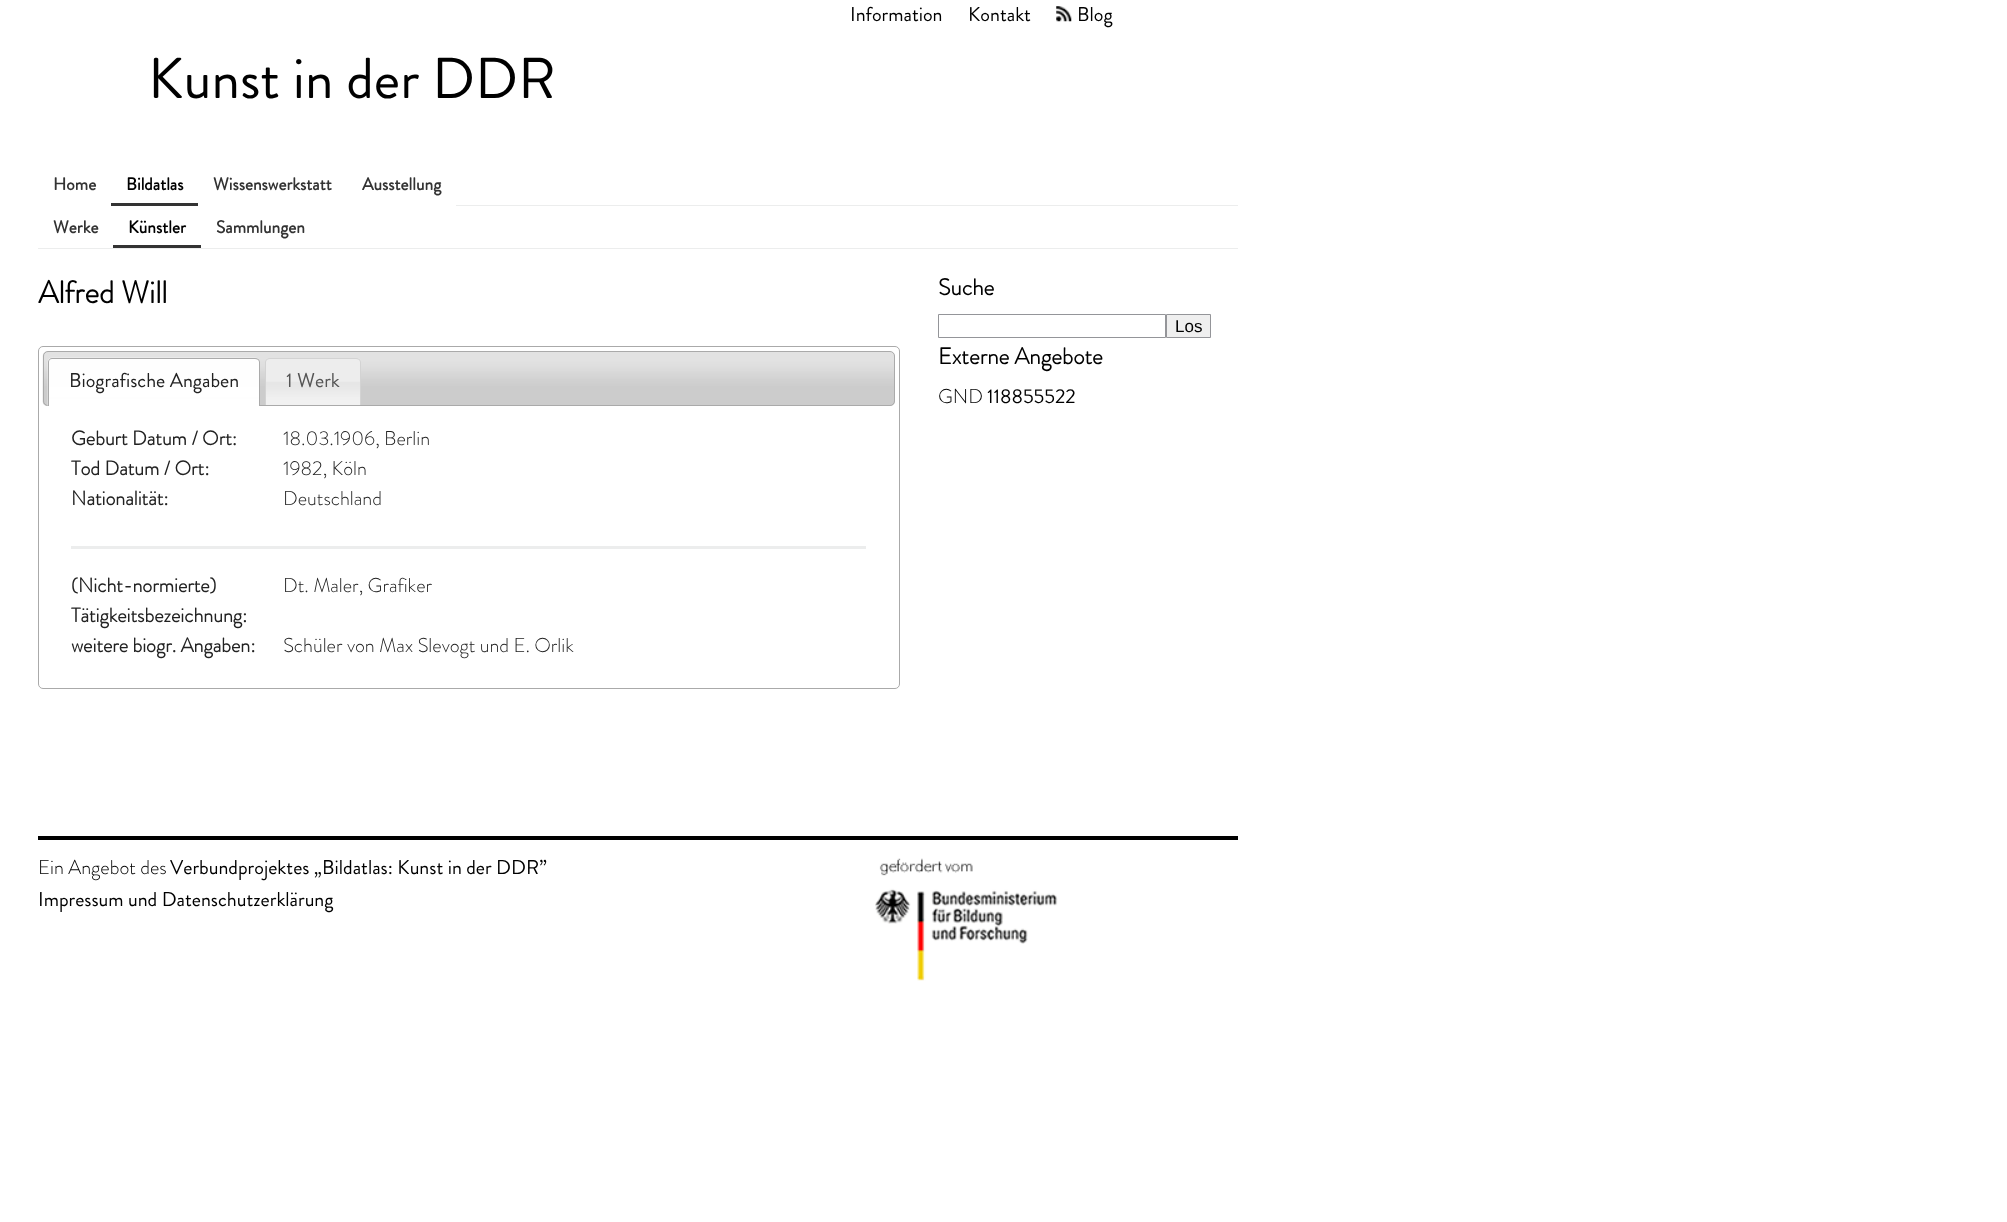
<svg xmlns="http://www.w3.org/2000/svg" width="2007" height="1222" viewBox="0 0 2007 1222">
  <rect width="100%" height="100%" fill="#fff"/>
  <image x="1056" y="6" width="16" height="16" href="img/1.png"/>
  <path d="M456 205h782v1H456z" fill="#eceded"/>
  <path d="M111 203h87v3H111z" fill="#333"/>
  <path d="M38 248h1200v1H38z" fill="#eceded"/>
  <path d="M113 245h88v3H113z" fill="#333"/>
  <rect x="38.5" y="346.5" width="861" height="342" rx="4.5" fill="none" stroke="#aaa"/>
  <image x="42" y="351" width="853" height="55" href="img/2.png"/>
  <rect x="43.5" y="351.5" width="851" height="54" rx="4.5" fill="none" stroke="#aaa"/>
  <image x="47" y="357" width="213" height="49" href="img/3.png"/>
  <path d="M52 358H255C258 358 260 360 260 362V406H48V362C48 360 50 358 52 358ZM52 359H255C257 359 259 360 259 362V406H49V362C49 360 50 359 52 359Z" fill="#aaa" fill-rule="evenodd"/>
  <image x="265" y="358" width="96" height="47" href="img/4.png"/>
  <path d="M270 358H356C359 358 361 360 361 362V405H265V362C265 360 267 358 270 358ZM270 359H356C358 359 360 360 360 362V405H266V362C266 360 268 359 270 359Z" fill="#d3d3d3" fill-rule="evenodd"/>
  <path d="M71 546h795v3H71z" fill="#eceded"/>
  <path d="M938.5 314.5h227v23H938.5z" fill="none" stroke="#949599"/>
  <path d="M1166.5 314.5h44v23H1166.5z" fill="#efefef" stroke="#949599"/>
  <path d="M38 836h1200v4H38z" fill="#000"/>
  <image x="875" y="858" width="183" height="123" href="img/5.png"/>
  <g font-family="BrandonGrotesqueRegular" font-size="20" fill="#000">
    <text x="850" y="21">Information</text>
    <text x="968" y="21">Kontakt</text>
    <text x="1077" y="21">Blog</text>
  </g>
  <text x="148" y="98" font-family="BrandonGrotesqueRegular" font-size="57.5" fill="#000">Kunst in der DDR</text>
  <text x="53" y="190" font-family="BrandonGrotesqueRegular" font-size="17.5" font-weight="bold" fill="#333">Home</text>
  <text x="126" y="190" font-family="BrandonGrotesqueRegular" font-size="17.5" font-weight="bold" fill="#000">Bildatlas</text>
  <g font-family="BrandonGrotesqueRegular" font-size="17.5" font-weight="bold" fill="#333">
    <text x="213" y="190">Wissenswerkstatt</text>
    <text x="362" y="190">Ausstellung</text>
    <text x="53" y="233">Werke</text>
  </g>
  <text x="128" y="233" font-family="BrandonGrotesqueRegular" font-size="17.5" font-weight="bold" fill="#000">Künstler</text>
  <text x="216" y="233" font-family="BrandonGrotesqueRegular" font-size="17.5" font-weight="bold" fill="#333">Sammlungen</text>
  <text x="38" y="303" font-family="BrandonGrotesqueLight" font-size="31.25" font-weight="bold" fill="#000">Alfred Will</text>
  <text x="69" y="387" font-family="BrandonGrotesqueRegular" font-size="20" fill="#222">Biografische Angaben</text>
  <text x="286" y="387" font-family="BrandonGrotesqueRegular" font-size="20" fill="#555">1 Werk</text>
  <text x="71" y="445" font-family="BrandonGrotesqueLight" font-size="20" font-weight="bold" fill="#222">Geburt Datum / Ort:</text>
  <text x="283" y="445" font-family="BrandonGrotesqueLight" font-size="20" font-weight="300" fill="#222">18.03.1906, Berlin</text>
  <text x="71" y="475" font-family="BrandonGrotesqueLight" font-size="20" font-weight="bold" fill="#222">Tod Datum / Ort:</text>
  <text x="283" y="475" font-family="BrandonGrotesqueLight" font-size="20" font-weight="300" fill="#222">1982, Köln</text>
  <text x="71" y="505" font-family="BrandonGrotesqueLight" font-size="20" font-weight="bold" fill="#222">Nationalität:</text>
  <text x="283" y="505" font-family="BrandonGrotesqueLight" font-size="20" font-weight="300" fill="#222">Deutschland</text>
  <g font-family="BrandonGrotesqueLight" font-size="20" font-weight="bold" fill="#222">
    <text x="71" y="592">(Nicht-normierte)</text>
    <text x="71" y="622">Tätigkeitsbezeichnung:</text>
  </g>
  <text x="283" y="592" font-family="BrandonGrotesqueLight" font-size="20" font-weight="300" fill="#222">Dt. Maler, Grafiker</text>
  <text x="71" y="652" font-family="BrandonGrotesqueLight" font-size="20" font-weight="bold" fill="#222">weitere biogr. Angaben:</text>
  <text x="283" y="652" font-family="BrandonGrotesqueLight" font-size="20" font-weight="300" fill="#222">Schüler von Max Slevogt und E. Orlik</text>
  <text x="938" y="295" font-family="BrandonGrotesqueLight" font-size="23" font-weight="bold" fill="#000">Suche</text>
  <text x="1175" y="332" font-family="Liberation Sans" font-size="17" fill="#000">Los</text>
  <text x="938" y="364" font-family="BrandonGrotesqueLight" font-size="23" font-weight="bold" fill="#000">Externe Angebote</text>
  <text x="938" y="403" font-family="BrandonGrotesqueLight" font-size="20" font-weight="300" fill="#000">GND</text>
  <text x="987" y="403" font-family="BrandonGrotesqueRegular" font-size="20" fill="#000">118855522</text>
  <text x="38" y="874" font-family="BrandonGrotesqueLight" font-size="20" font-weight="300" fill="#000">Ein Angebot des</text>
  <g font-family="BrandonGrotesqueRegular" font-size="20" fill="#000">
    <text x="170" y="874">Verbundprojektes „Bildatlas: Kunst in der DDR”</text>
    <text x="38" y="906">Impressum und Datenschutzerklärung</text>
  </g>
</svg>
